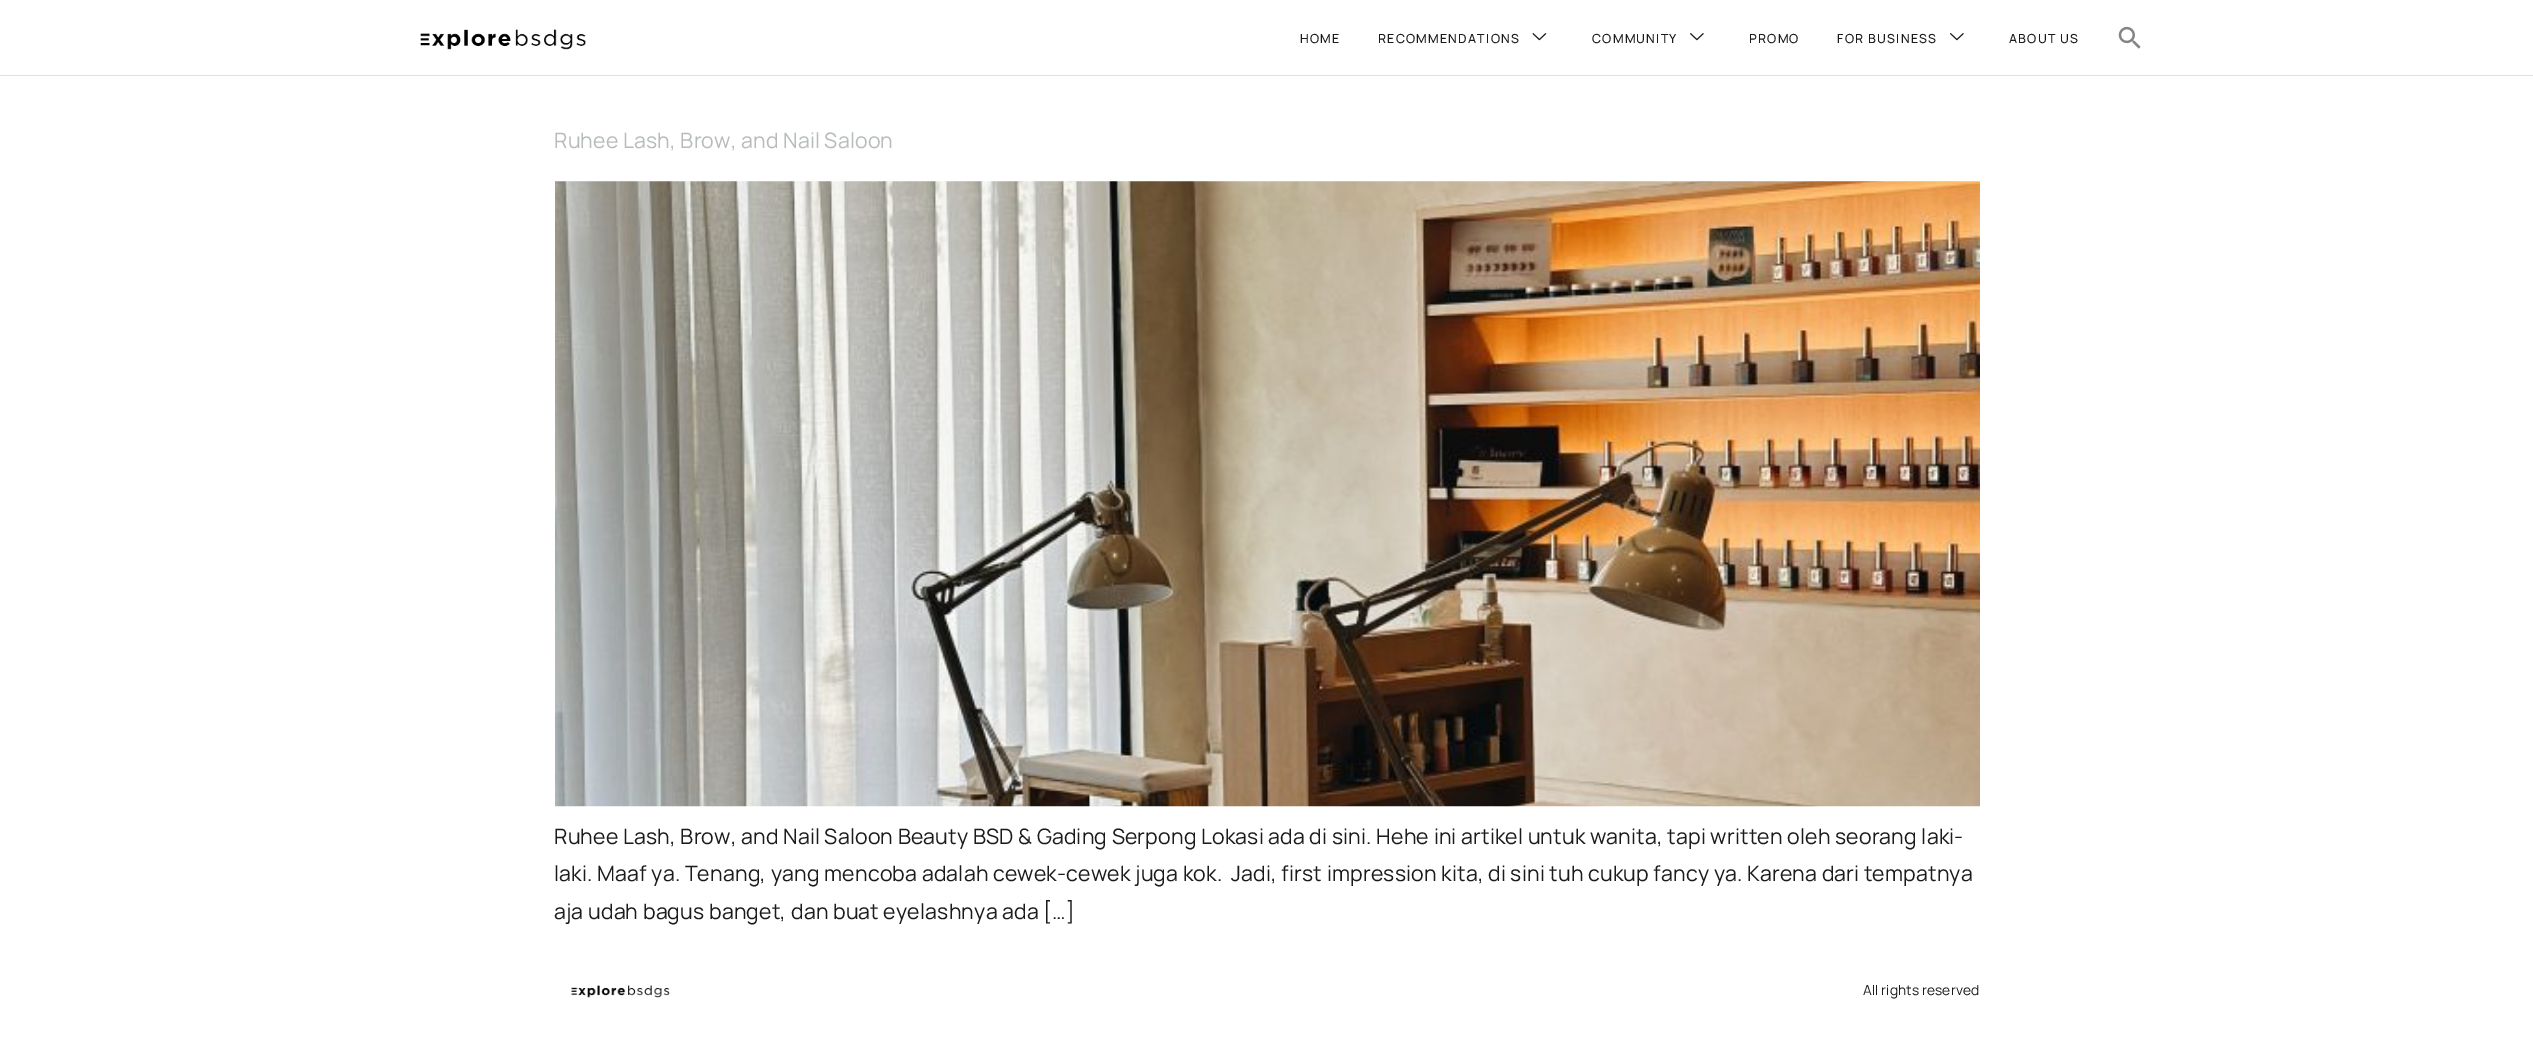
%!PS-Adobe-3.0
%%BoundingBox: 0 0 2533 1051
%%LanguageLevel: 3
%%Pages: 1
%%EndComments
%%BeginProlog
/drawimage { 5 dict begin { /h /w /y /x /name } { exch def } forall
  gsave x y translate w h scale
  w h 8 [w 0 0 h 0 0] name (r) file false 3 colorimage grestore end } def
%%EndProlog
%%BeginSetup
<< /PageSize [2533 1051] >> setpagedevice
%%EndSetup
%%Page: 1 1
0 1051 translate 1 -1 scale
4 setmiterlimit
1 setgray
0 0 2533 1051 rectfill
0.851 0.894 0.867 setrgbcolor
0 75 2533 1 rectfill
(images/1.raw) 420 29 166 21 drawimage
(images/2.raw) 1532 33 15 8 drawimage
(images/3.raw) 1690 33 14 8 drawimage
(images/3.raw) 1950 33 14 8 drawimage
(images/4.raw) 2118 26 23 23 drawimage
(images/5.raw) 555 181 1425 626 drawimage
(images/6.raw) 571 985 99 13 drawimage
/Manrope-Medium [12.5 0 0 -12.5 0 0] selectfont
0.106 setgray
1300 43 moveto 1.25 0 (HOME) ashow
1378 43 moveto 1.25 0 (RECOMMENDATIONS) ashow
1592 43 moveto 1.25 0 (COMMUNITY) ashow
1749 43 moveto 1.25 0 (PROMO) ashow
1837 43 moveto 1.25 0 (FOR BUSINESS) ashow
2009 43 moveto 1.25 0 (ABOUT US) ashow
/Manrope-Regular [21.25 0 0 -21.25 0 0] selectfont
0.714 0.737 0.722 setrgbcolor
554 148 moveto 0.19 0 (Ruhee Lash, Brow, and Nail Saloon) ashow
0.106 setgray
554 844 moveto 0.19 0 (Ruhee Lash, Brow, and Nail Saloon Beauty BSD & Gading Serpong Lokasi ada di sini. Hehe ini artikel untuk wanita, tapi written oleh seorang laki-) ashow
554 881 moveto 0.19 0 (laki. Maaf ya. Tenang, yang mencoba adalah cewek-cewek juga kok.  Jadi, first impression kita, di sini tuh cukup fancy ya. Karena dari tempatnya) ashow
554 919 moveto 0.19 0 (aja udah bagus banget, dan buat eyelashnya ada […]) ashow
/Manrope-Regular [13.75 0 0 -13.75 0 0] selectfont
1863 995 moveto 0.1 0 (All rights reserved) ashow
showpage
%%EOF
